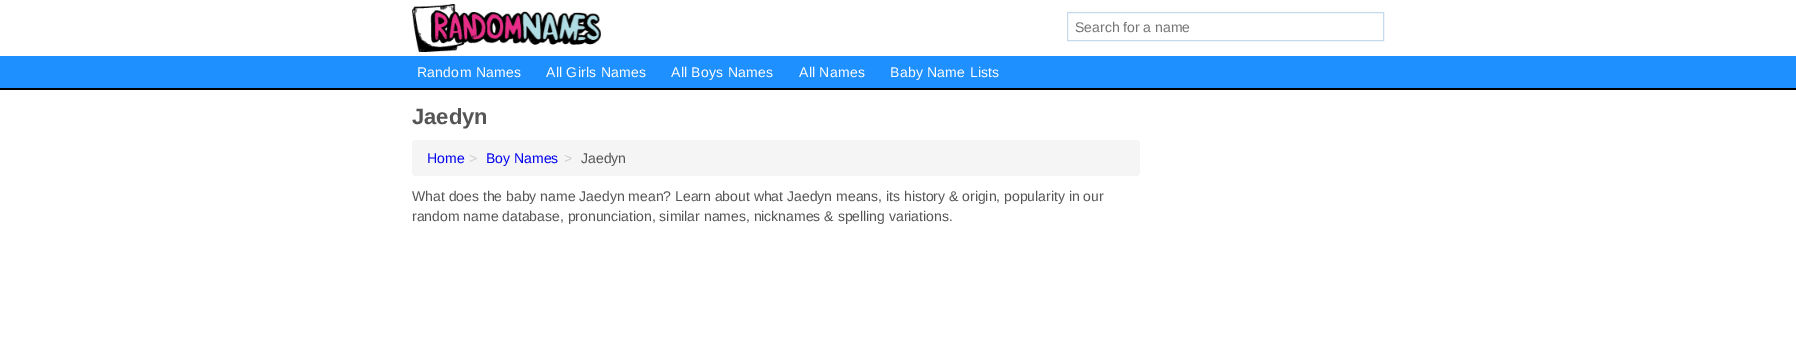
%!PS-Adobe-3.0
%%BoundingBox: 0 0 1796 341
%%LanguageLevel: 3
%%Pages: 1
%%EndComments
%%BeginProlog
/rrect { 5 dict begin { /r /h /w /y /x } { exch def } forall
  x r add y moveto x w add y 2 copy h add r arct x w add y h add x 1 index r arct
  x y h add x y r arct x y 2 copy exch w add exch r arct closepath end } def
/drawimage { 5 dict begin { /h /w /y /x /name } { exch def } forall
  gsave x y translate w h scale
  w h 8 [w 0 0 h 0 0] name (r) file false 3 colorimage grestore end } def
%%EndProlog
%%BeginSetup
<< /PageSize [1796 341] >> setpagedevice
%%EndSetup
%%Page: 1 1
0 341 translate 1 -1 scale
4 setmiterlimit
1 setgray
0 0 1796 341 rectfill
0 setgray
0 88 1796 2 rectfill
(images/1.raw) 412 4 189 48 drawimage
0.773 0.855 0.929 setrgbcolor
1067.5 12.5 316 28 rectstroke
0.118 0.565 1 setrgbcolor
0 56 1796 32 rectfill
0.961 setgray
412 140 728 36 4 rrect fill
/LiberationSans-Regular [14 0 0 -14 0 0] selectfont
0.459 setgray
1075 32 moveto (Search for a name) show
1 setgray
417 77 moveto 0.25 0 (Random Names) ashow
546 77 moveto 0.25 0 (All Girls Names) ashow
671 77 moveto 0.25 0 (All Boys Names) ashow
799 77 moveto 0.25 0 (All Names) ashow
890 77 moveto 0.25 0 (Baby Name Lists) ashow
/LiberationSans-Bold [22 0 0 -22 0 0] selectfont
0.333 setgray
412 124 moveto (Jaedyn) show
/LiberationSans-Regular [14 0 0 -14 0 0] selectfont
0 0 0.933 setrgbcolor
427 163 moveto (Home) show
0.8 setgray
469 163 moveto (>) show
0 0 0.933 setrgbcolor
486 163 moveto (Boy Names) show
0.8 setgray
564 163 moveto (>) show
0.333 setgray
581 163 moveto (Jaedyn) show
412 201 moveto (What does the baby name Jaedyn mean? Learn about what Jaedyn means, its history & origin, popularity in our) show
412 221 moveto (random name database, pronunciation, similar names, nicknames & spelling variations.) show
showpage
%%EOF
